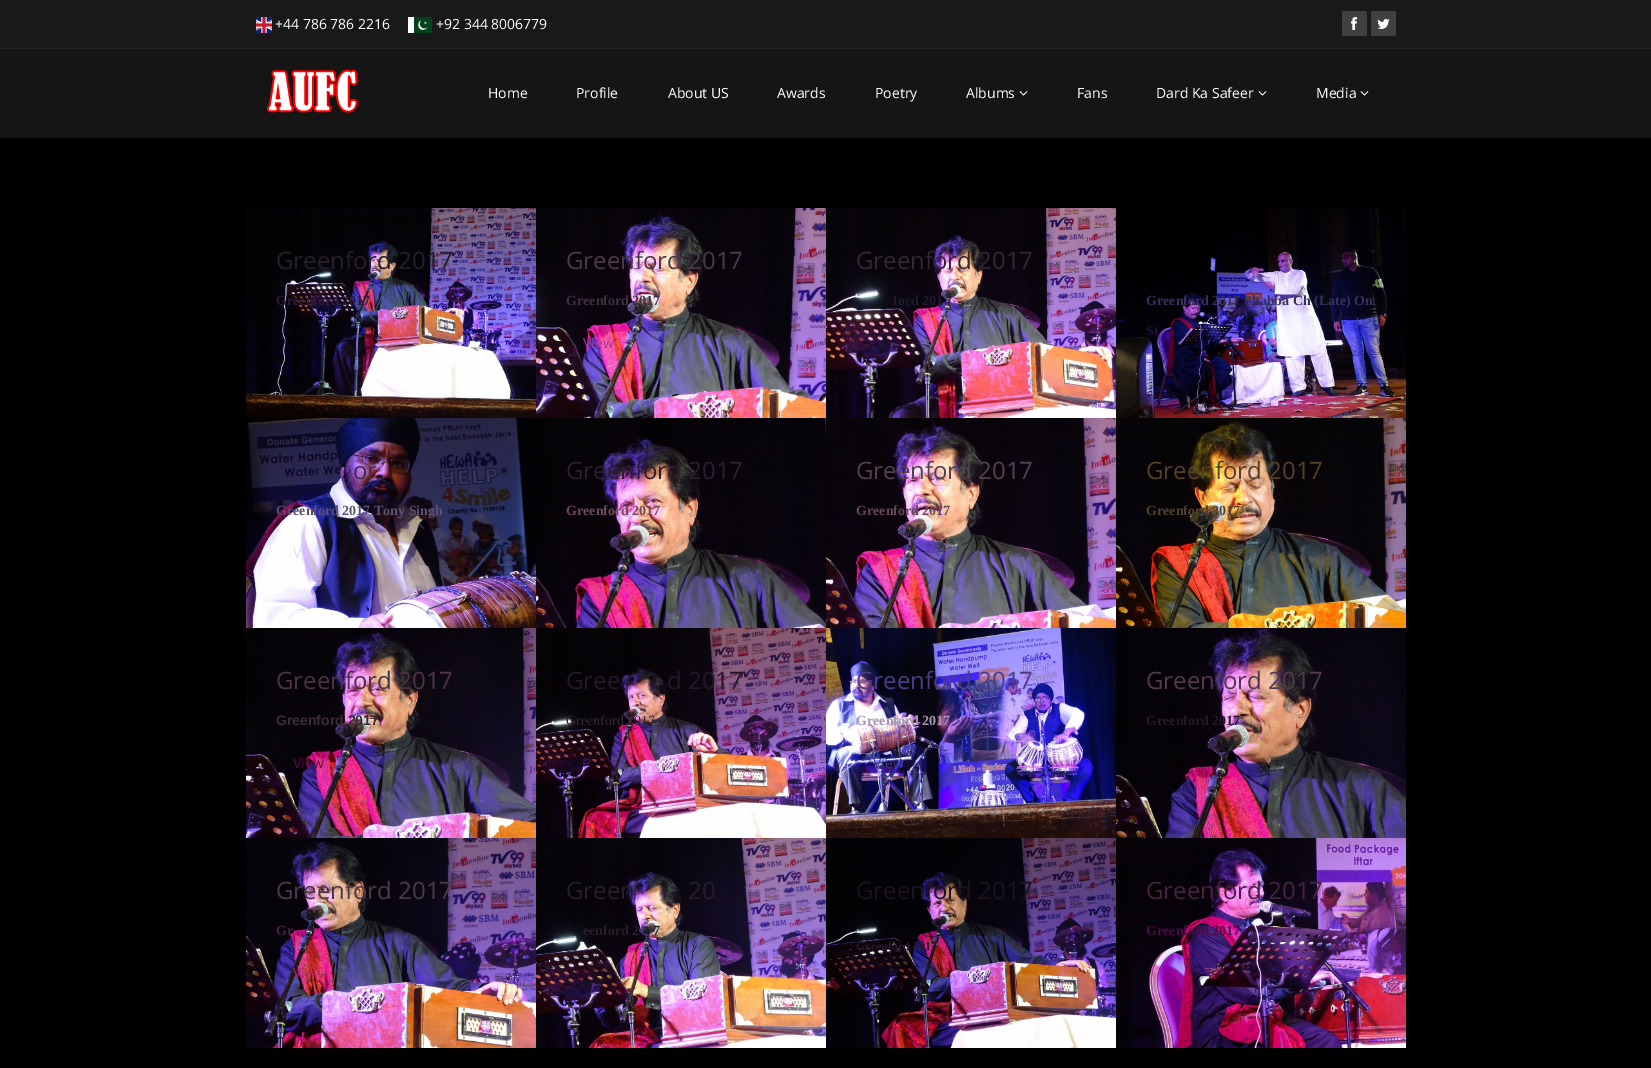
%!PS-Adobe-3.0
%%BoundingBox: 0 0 1651 1068
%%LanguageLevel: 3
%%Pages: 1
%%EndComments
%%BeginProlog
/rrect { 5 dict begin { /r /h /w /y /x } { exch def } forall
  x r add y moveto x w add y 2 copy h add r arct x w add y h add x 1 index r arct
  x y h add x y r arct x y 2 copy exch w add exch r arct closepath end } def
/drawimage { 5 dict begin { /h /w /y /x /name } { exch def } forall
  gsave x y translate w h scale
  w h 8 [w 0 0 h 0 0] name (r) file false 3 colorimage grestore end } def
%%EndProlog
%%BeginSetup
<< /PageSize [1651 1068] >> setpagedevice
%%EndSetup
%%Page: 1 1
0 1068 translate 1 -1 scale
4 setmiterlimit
0 setgray
0 0 1651 1068 rectfill
0.098 setgray
0 0 1651 48 rectfill
0.133 setgray
0 48 1651 1 rectfill
(images/1.raw) 256 17 16 16 drawimage
(images/2.raw) 408 17 24 16 drawimage
0.251 setgray
1342 11 25 25 2 rrect fill
(images/3.raw) 1351 17 6 13 drawimage
1371 11 25 25 2 rrect fill
(images/4.raw) 1377 19 13 10 drawimage
0.082 setgray
0 49 1651 89 rectfill
(images/5.raw) 267 69 91 44 drawimage
(images/6.raw) 1019 91 9 5 drawimage
(images/6.raw) 1258 91 9 5 drawimage
(images/6.raw) 1360 91 9 5 drawimage
(images/7.raw) 246 208 290 210 drawimage
(images/8.raw) 536 208 290 210 drawimage
(images/9.raw) 826 208 290 210 drawimage
(images/10.raw) 1116 208 290 210 drawimage
(images/11.raw) 246 418 290 210 drawimage
(images/12.raw) 536 418 290 210 drawimage
(images/13.raw) 826 418 290 210 drawimage
(images/14.raw) 1116 418 290 210 drawimage
(images/15.raw) 246 628 290 210 drawimage
(images/16.raw) 536 628 290 210 drawimage
(images/17.raw) 826 628 290 210 drawimage
(images/18.raw) 1116 628 290 210 drawimage
(images/19.raw) 246 838 290 210 drawimage
(images/20.raw) 536 838 290 210 drawimage
(images/21.raw) 826 838 290 210 drawimage
(images/22.raw) 1116 838 290 210 drawimage
/OpenSans-Regular [14 0 0 -14 0 0] selectfont
1 setgray
275 29 moveto (+44 786 786 2216) show
436 29 moveto (+92 344 8006779) show
488 98 moveto (Home) show
576 98 moveto (Profile) show
668 98 moveto (About US) show
777 98 moveto (Awards) show
875 98 moveto (Poetry) show
966 98 moveto (Albums) show
1077 98 moveto (Fans) show
1156 98 moveto (Dard Ka Safeer) show
1316 98 moveto (Media) show
/OpenSans-Regular [24 0 0 -24 0 0] selectfont
0.149 0.118 0.169 setrgbcolor
276 269 moveto (Greenford 2017) show
/LiberationSerif-Bold [14 0 0 -14 0 0] selectfont
0.188 0.11 0.22 setrgbcolor
276 305 moveto (Greenford 2017) show
/OpenSans-Regular [24 0 0 -24 0 0] selectfont
0.29 0.227 0.275 setrgbcolor
566 269 moveto (Greenford 2017) show
/LiberationSerif-Bold [14 0 0 -14 0 0] selectfont
0.247 0.192 0.247 setrgbcolor
566 305 moveto (Greenford 2017) show
/OpenSans-Regular [14 0 0 -14 0 0] selectfont
0.639 0.231 0.596 setrgbcolor
583 348 moveto (View) show
/OpenSans-Regular [24 0 0 -24 0 0] selectfont
0.204 0.149 0.196 setrgbcolor
856 269 moveto (Greenford 2017) show
/LiberationSerif-Bold [14 0 0 -14 0 0] selectfont
0.118 0.11 0.169 setrgbcolor
893 305 moveto (ford 201) show
0.22 0.188 0.369 setrgbcolor
1146 305 moveto (Greenford 2017 Shabba Ch \(Late\) On) show
0.125 0.051 0.247 setrgbcolor
1146 335 moveto (St) show
/OpenSans-Regular [24 0 0 -24 0 0] selectfont
0.259 0.176 0.349 setrgbcolor
353 479 moveto (or) show
/LiberationSerif-Bold [14 0 0 -14 0 0] selectfont
0.357 0.314 0.447 setrgbcolor
276 515 moveto (Greenford 2017 Tony Singh) show
/OpenSans-Regular [14 0 0 -14 0 0] selectfont
0.89 0.847 0.961 setrgbcolor
293 558 moveto (V) show
/OpenSans-Regular [24 0 0 -24 0 0] selectfont
0.18 0.114 0.184 setrgbcolor
566 479 moveto (Greenford 2017) show
/LiberationSerif-Bold [14 0 0 -14 0 0] selectfont
0.439 0.29 0.361 setrgbcolor
566 515 moveto (Greenford 2017) show
/OpenSans-Regular [24 0 0 -24 0 0] selectfont
0.325 0.247 0.31 setrgbcolor
856 479 moveto (Greenford 2017) show
/LiberationSerif-Bold [14 0 0 -14 0 0] selectfont
0.396 0.278 0.337 setrgbcolor
856 515 moveto (Greenford 2017) show
/OpenSans-Regular [24 0 0 -24 0 0] selectfont
0.325 0.251 0.157 setrgbcolor
1146 479 moveto (Greenford 2017) show
/LiberationSerif-Bold [14 0 0 -14 0 0] selectfont
0.314 0.251 0.188 setrgbcolor
1146 515 moveto (Greenford 2017) show
/OpenSans-Regular [24 0 0 -24 0 0] selectfont
0.294 0.2 0.267 setrgbcolor
276 689 moveto (Greenford 2017) show
/LiberationSans-Bold [14 0 0 -14 0 0] selectfont
0.227 0.173 0.212 setrgbcolor
276 725 moveto (Greenford 2017) show
/OpenSans-Regular [14 0 0 -14 0 0] selectfont
0.337 0.067 0.247 setrgbcolor
293 768 moveto (View) show
/OpenSans-Regular [24 0 0 -24 0 0] selectfont
0.153 0.094 0.157 setrgbcolor
566 689 moveto (Gree) show
667 689 moveto (d 2017) show
/LiberationSerif-Regular [14 0 0 -14 0 0] selectfont
0.204 0.149 0.196 setrgbcolor
566 725 moveto (Greenford 2017) show
/OpenSans-Regular [24 0 0 -24 0 0] selectfont
0.298 0.239 0.514 setrgbcolor
856 689 moveto (Greenford 2017) show
/LiberationSerif-Bold [14 0 0 -14 0 0] selectfont
0.655 0.592 0.686 setrgbcolor
856 725 moveto (Greenford 2017) show
/OpenSans-Regular [14 0 0 -14 0 0] selectfont
0.251 0.231 0.529 setrgbcolor
873 768 moveto (View) show
/OpenSans-Regular [24 0 0 -24 0 0] selectfont
0.322 0.224 0.298 setrgbcolor
1146 689 moveto (Greenford 2017) show
/LiberationSerif-Bold [14 0 0 -14 0 0] selectfont
0.153 0.094 0.157 setrgbcolor
1146 725 moveto (Greenford 2017) show
/OpenSans-Regular [24 0 0 -24 0 0] selectfont
0.29 0.227 0.275 setrgbcolor
276 899 moveto (Greenford 2017) show
/LiberationSerif-Bold [14 0 0 -14 0 0] selectfont
0.275 0.129 0.251 setrgbcolor
276 935 moveto (Gr) show
324 935 moveto (r) show
/OpenSans-Regular [14 0 0 -14 0 0] selectfont
0.678 0.18 0.329 setrgbcolor
293 978 moveto (View) show
/OpenSans-Regular [24 0 0 -24 0 0] selectfont
0.149 0.118 0.169 setrgbcolor
566 899 moveto (Green) show
688 899 moveto (20) show
/LiberationSerif-Bold [14 0 0 -14 0 0] selectfont
583 935 moveto (eenford 2) show
653 935 moveto (7) show
/OpenSans-Regular [24 0 0 -24 0 0] selectfont
0.11 0.071 0.129 setrgbcolor
856 899 moveto (Greenford 2017) show
/LiberationSerif-Bold [12 0 0 -12 0 0] selectfont
0.153 0.094 0.157 setrgbcolor
856 950 moveto (Greenford 2017) show
/OpenSans-Regular [14 0 0 -14 0 0] selectfont
0.114 0.067 0.18 setrgbcolor
893 990 moveto (w) show
/OpenSans-Regular [24 0 0 -24 0 0] selectfont
0.275 0.129 0.251 setrgbcolor
1146 899 moveto (Greenford 2017) show
/LiberationSerif-Bold [14 0 0 -14 0 0] selectfont
0.294 0.047 0.271 setrgbcolor
1146 935 moveto (Greenford 2017) show
showpage
%%EOF
